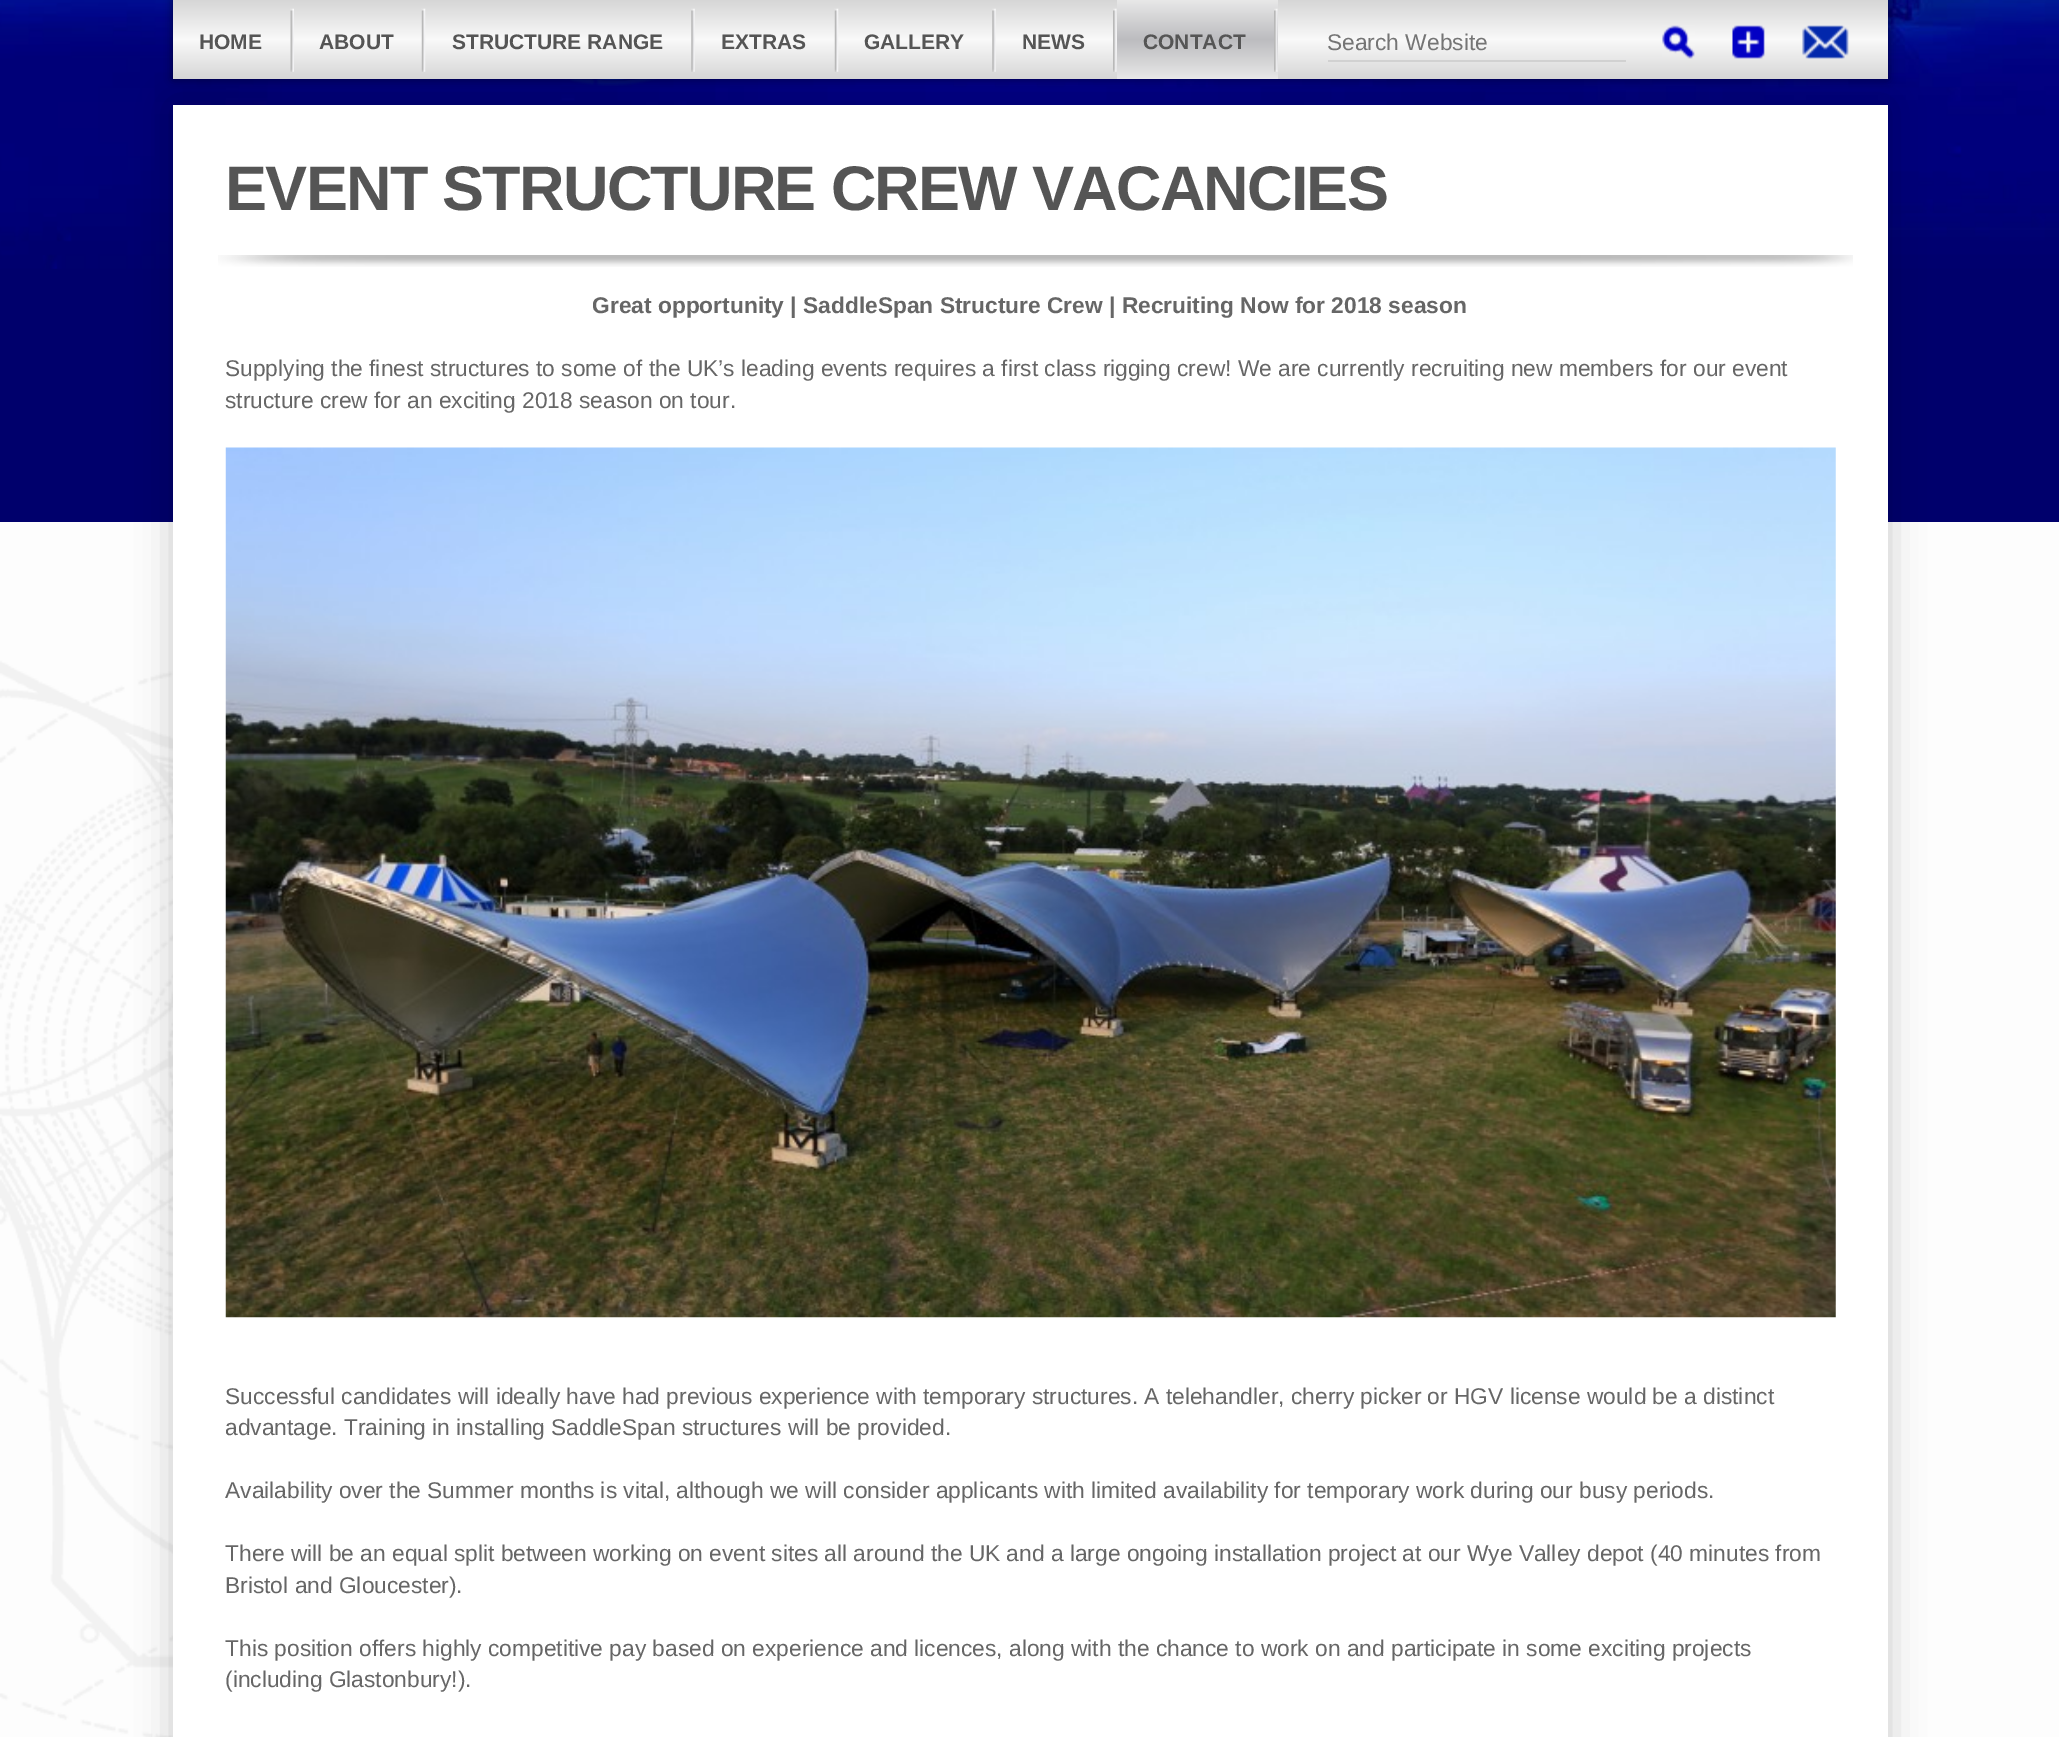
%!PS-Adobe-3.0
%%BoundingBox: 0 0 2059 1737
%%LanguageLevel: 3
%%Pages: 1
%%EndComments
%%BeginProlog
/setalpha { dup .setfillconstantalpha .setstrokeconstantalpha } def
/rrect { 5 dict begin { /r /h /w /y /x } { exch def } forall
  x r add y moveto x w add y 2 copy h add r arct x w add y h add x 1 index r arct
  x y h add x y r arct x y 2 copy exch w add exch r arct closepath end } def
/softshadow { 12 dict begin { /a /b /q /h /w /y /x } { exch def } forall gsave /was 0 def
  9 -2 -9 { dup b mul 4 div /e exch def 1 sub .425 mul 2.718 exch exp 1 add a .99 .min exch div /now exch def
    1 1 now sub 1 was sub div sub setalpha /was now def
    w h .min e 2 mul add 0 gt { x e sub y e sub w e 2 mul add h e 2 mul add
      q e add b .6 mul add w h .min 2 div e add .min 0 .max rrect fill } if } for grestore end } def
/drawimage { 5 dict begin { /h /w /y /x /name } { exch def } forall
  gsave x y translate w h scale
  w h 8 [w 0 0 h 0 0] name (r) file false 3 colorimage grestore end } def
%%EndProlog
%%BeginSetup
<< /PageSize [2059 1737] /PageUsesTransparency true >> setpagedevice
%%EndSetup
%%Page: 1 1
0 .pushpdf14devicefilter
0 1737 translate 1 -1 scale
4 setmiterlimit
0.992 setgray
0 0 2059 1737 rectfill
(images/1.raw) 0 522 173 1215 drawimage
0 0 0.424 setrgbcolor
0 269 2059 253 rectfill
(images/2.raw) 0 0 2059 269 drawimage
0 setgray
173 105 1715 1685 0 17.5 0.2 softshadow
(images/11.raw) 562 79 97 7 drawimage
173 0 1715 79 0 4.5 0.5 softshadow
gsave newpath 173 0 moveto 1888 0 lineto 1888 79 lineto 173 79 lineto closepath clip newpath
<< /ShadingType 2 /ColorSpace /DeviceRGB /Coords [1031 0 1031 79] /Extend [true true] /Function << /FunctionType 3 /Domain [0 1] /Functions [<< /FunctionType 2 /Domain [0 1] /C0 [0.839 0.839 0.839] /C1 [0.976 0.976 0.976] /N 1 >> << /FunctionType 2 /Domain [0 1] /C0 [0.976 0.976 0.976] /C1 [0.839 0.839 0.839] /N 1 >>] /Bounds [0.5] /Encode [0 1 0 1] >> >> shfill grestore
(images/3.raw) 290 8 4 64 drawimage
(images/4.raw) 421 8 5 64 drawimage
(images/5.raw) 691 8 4 64 drawimage
(images/4.raw) 834 8 5 64 drawimage
(images/5.raw) 992 8 4 64 drawimage
(images/6.raw) 1113 8 4 64 drawimage
gsave newpath 1117 0 moveto 1278 0 lineto 1278 79 lineto 1117 79 lineto closepath clip newpath
<< /ShadingType 2 /ColorSpace /DeviceRGB /Coords [1197 0 1197 79] /Extend [true true] /Function << /FunctionType 3 /Domain [0 1] /Functions [<< /FunctionType 2 /Domain [0 1] /C0 [0.91 0.91 0.91] /C1 [0.737 0.737 0.749] /N 1 >> << /FunctionType 2 /Domain [0 1] /C0 [0.737 0.737 0.749] /C1 [0.91 0.91 0.91] /N 1 >>] /Bounds [0.5] /Encode [0 1 0 1] >> >> shfill grestore
(images/7.raw) 1274 8 4 64 drawimage
0.82 setgray
1328 60 298 2 rectfill
(images/8.raw) 1662 25 33 34 drawimage
(images/9.raw) 1732 25 33 34 drawimage
(images/10.raw) 1802 25 47 34 drawimage
1 setgray
173 105 1715 1632 rectfill
(images/12.raw) 218 255 1635 12 drawimage
(images/13.raw) 225 447 1611 871 drawimage
/LiberationSans-Bold [21 0 0 -21 0 0] selectfont
0.333 setgray
199 49 moveto (HOME) show
319 49 moveto (ABOUT) show
452 49 moveto (STRUCTURE RANGE) show
721 49 moveto (EXTRAS) show
864 49 moveto (GALLERY) show
1022 49 moveto (NEWS) show
1143 49 moveto (CONTACT) show
/LiberationSans-Regular [22.75 0 0 -22.75 0 0] selectfont
0.459 setgray
1327 50 moveto (Search Website) show
/LiberationSans-Bold [63 0 0 -63 0 0] selectfont
0.333 setgray
225 210 moveto -1.75 0 (EVENT STRUCTURE CREW VACANCIES) ashow
/LiberationSans-Bold [22.75 0 0 -22.75 0 0] selectfont
0.4 setgray
592 313 moveto (Great opportunity | SaddleSpan Structure Crew | Recruiting Now for 2018 season) show
/LiberationSans-Regular [22.75 0 0 -22.75 0 0] selectfont
225 376 moveto (Supplying the finest structures to some of the UK’s leading events requires a first class rigging crew! We are currently recruiting new members for our event) show
225 408 moveto (structure crew for an exciting 2018 season on tour.) show
225 1404 moveto (Successful candidates will ideally have had previous experience with temporary structures. A telehandler, cherry picker or HGV license would be a distinct) show
225 1435 moveto (advantage. Training in installing SaddleSpan structures will be provided.) show
225 1498 moveto (Availability over the Summer months is vital, although we will consider applicants with limited availability for temporary work during our busy periods.) show
225 1561 moveto (There will be an equal split between working on event sites all around the UK and a large ongoing installation project at our Wye Valley depot \(40 minutes from) show
225 1593 moveto (Bristol and Gloucester\).) show
225 1656 moveto (This position offers highly competitive pay based on experience and licences, along with the chance to work on and participate in some exciting projects) show
225 1687 moveto (\(including Glastonbury!\).) show
.poppdf14devicefilter showpage
%%EOF
